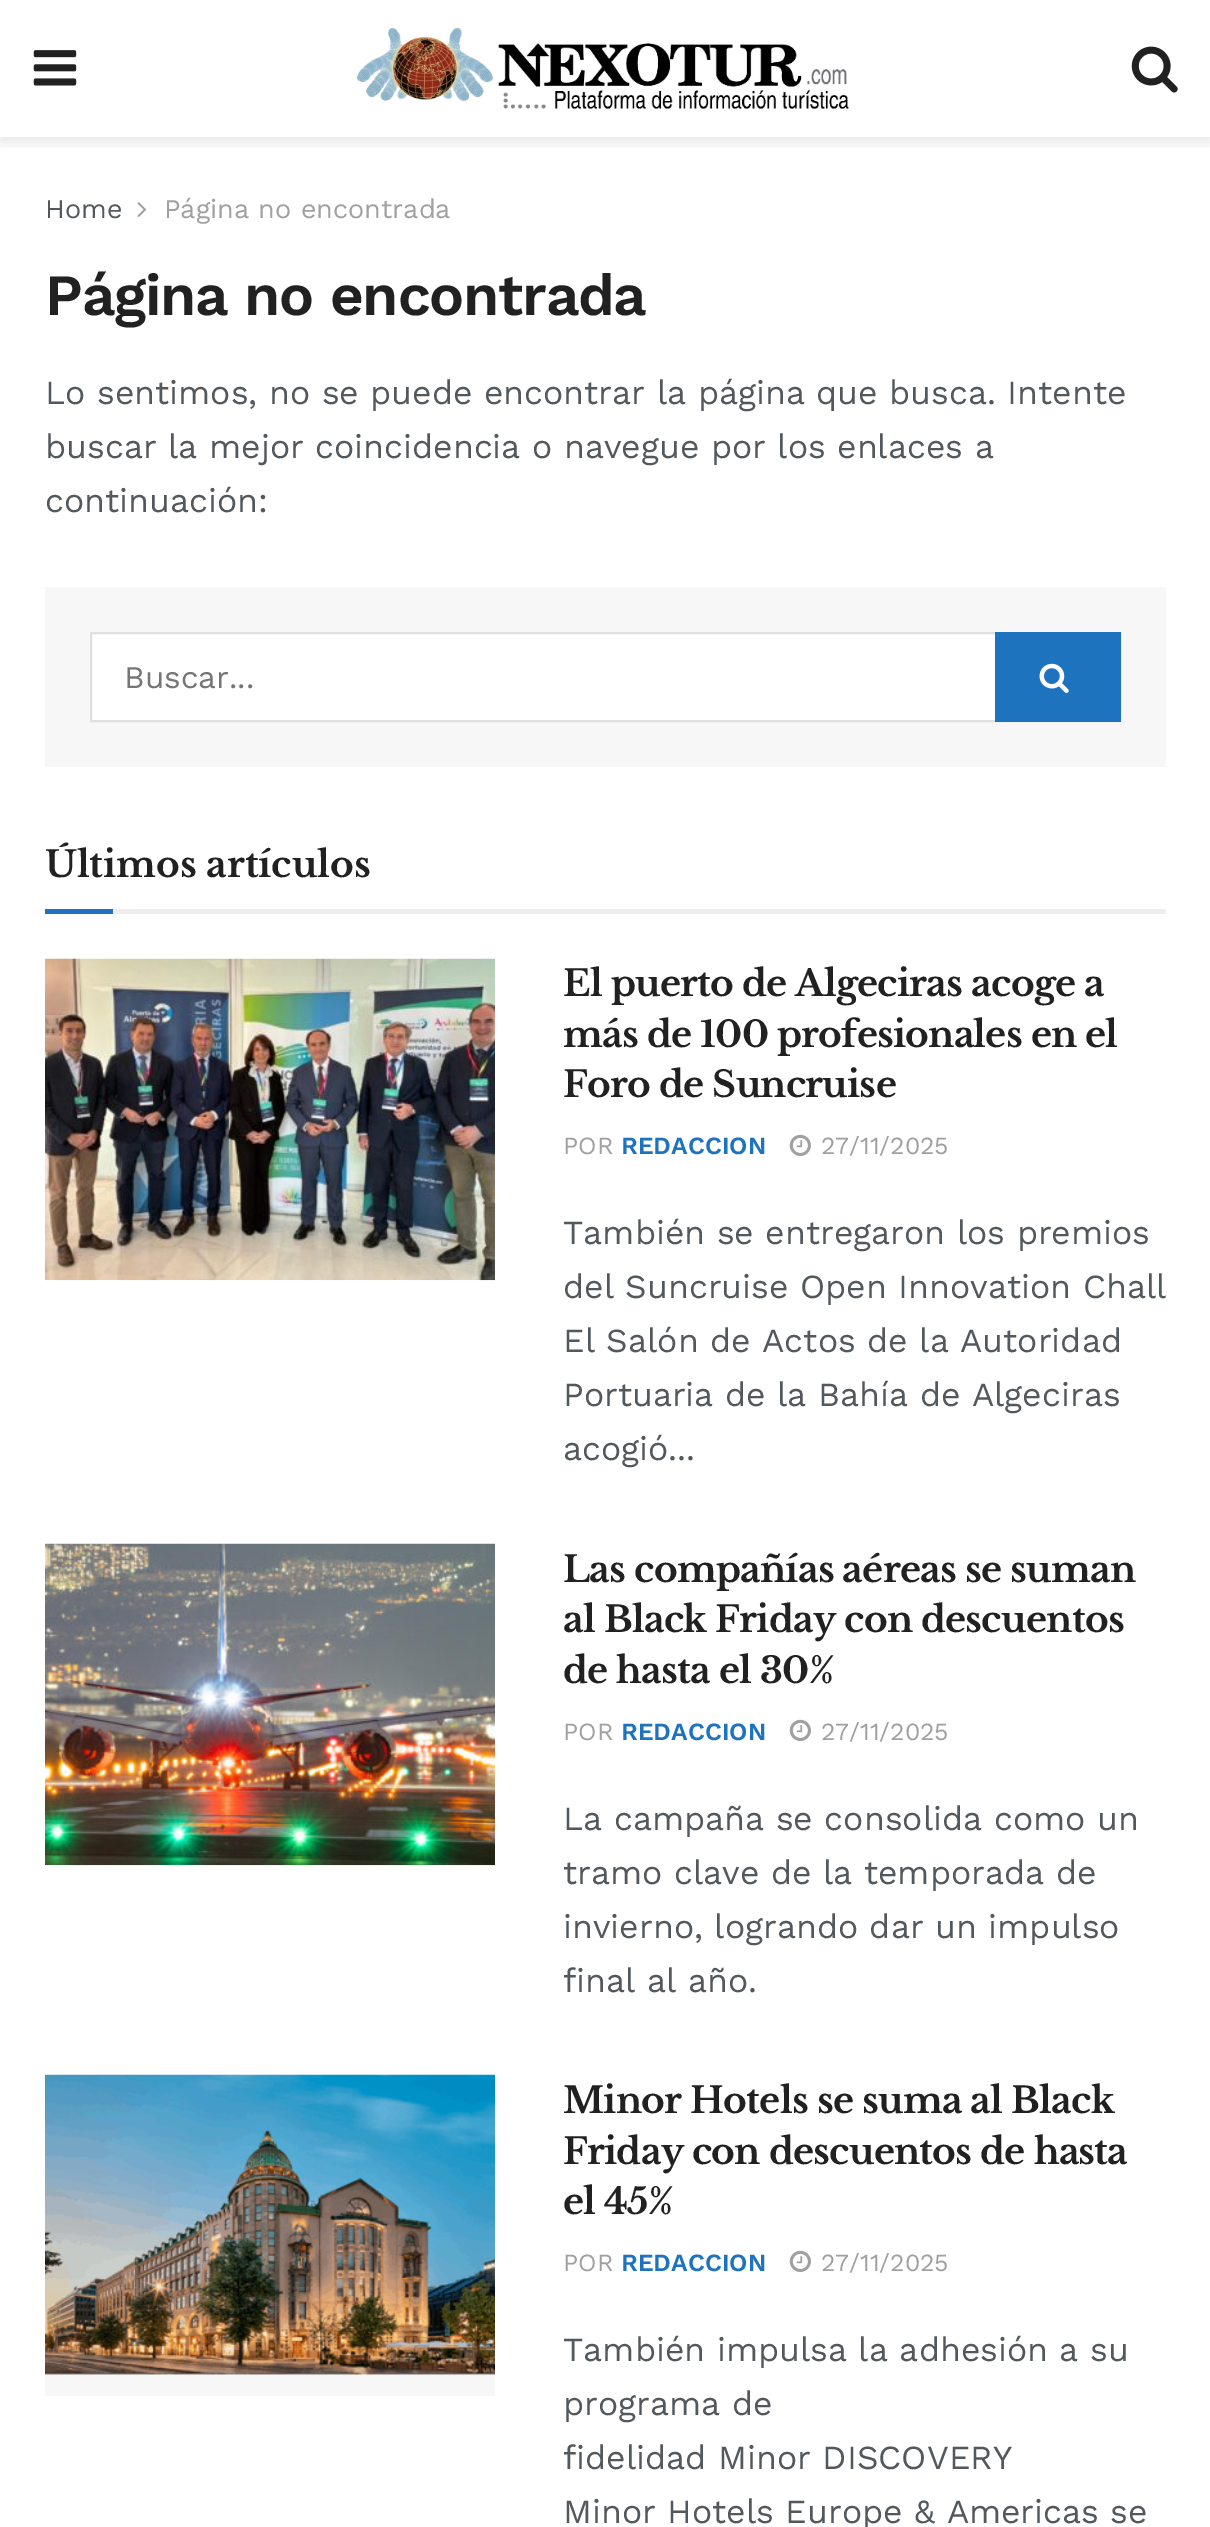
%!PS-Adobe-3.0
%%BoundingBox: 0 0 1210 2527
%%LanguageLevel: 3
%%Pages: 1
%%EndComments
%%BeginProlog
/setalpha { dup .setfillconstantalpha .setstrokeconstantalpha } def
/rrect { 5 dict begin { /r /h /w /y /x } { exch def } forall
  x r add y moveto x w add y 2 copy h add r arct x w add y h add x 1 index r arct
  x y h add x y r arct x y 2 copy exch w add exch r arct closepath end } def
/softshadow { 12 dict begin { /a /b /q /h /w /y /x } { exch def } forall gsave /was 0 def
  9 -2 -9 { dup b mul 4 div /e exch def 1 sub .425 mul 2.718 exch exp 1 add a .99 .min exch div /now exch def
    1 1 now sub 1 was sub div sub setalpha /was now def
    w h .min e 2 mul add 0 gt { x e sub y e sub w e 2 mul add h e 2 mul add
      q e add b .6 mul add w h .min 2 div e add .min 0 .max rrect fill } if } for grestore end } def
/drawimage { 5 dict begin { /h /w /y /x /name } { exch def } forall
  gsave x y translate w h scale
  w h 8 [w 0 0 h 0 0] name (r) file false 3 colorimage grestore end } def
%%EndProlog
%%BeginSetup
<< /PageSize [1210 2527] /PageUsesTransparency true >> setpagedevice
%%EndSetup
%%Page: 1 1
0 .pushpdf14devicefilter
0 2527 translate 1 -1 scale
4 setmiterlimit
1 setgray
0 0 1210 2527 rectfill
gsave
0 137 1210 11 rectclip
0 setgray
0 5 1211 137 0 7 0.1 softshadow
grestore
(images/1.raw) 33 50 44 36 drawimage
(images/2.raw) 356 27 493 82 drawimage
(images/3.raw) 1131 46 47 47 drawimage
(images/4.raw) 137 202 10 15 drawimage
0.969 setgray
45 587 1121 180 rectfill
1 setgray
92 634 903 86 rectfill
0.878 setgray
2 setlinewidth
91 633 1029 88 rectstroke
0.118 0.451 0.745 setrgbcolor
995 632 126 90 rectfill
(images/5.raw) 1039 663 30 30 drawimage
0.933 setgray
113 909 1053 5 rectfill
0.118 0.451 0.745 setrgbcolor
45 909 68 5 rectfill
(images/6.raw) 45 958 450 323 drawimage
(images/7.raw) 789 1134 22 22 drawimage
(images/8.raw) 45 1543 450 323 drawimage
(images/7.raw) 789 1719 22 22 drawimage
0.969 setgray
45 2373 450 23 rectfill
(images/9.raw) 45 2074 450 301 drawimage
(images/7.raw) 789 2250 22 22 drawimage
/WorkSans-Regular [27 0 0 -27 0 0] selectfont
0.325 0.345 0.361 setrgbcolor
45 218 moveto (Home) show
0.627 setgray
164 218 moveto (Página no encontrada) show
/WorkSans-SemiBold [58.5 0 0 -58.5 0 0] selectfont
0.129 setgray
45 315 moveto -1.2 0 (Página no encontrada) ashow
/WorkSans-Regular [33.75 0 0 -33.75 0 0] selectfont
0.325 0.345 0.361 setrgbcolor
45 404 moveto (Lo sentimos, no se puede encontrar la página que busca. Intente) show
45 458 moveto (buscar la mejor coincidencia o navegue por los enlaces a) show
45 512 moveto (continuación:) show
/WorkSans-Regular [31.5 0 0 -31.5 0 0] selectfont
0.459 setgray
124 688 moveto (Buscar...) show
/LibreBaskerville-Bold [36 0 0 -36 0 0] selectfont
0.129 setgray
45 877 moveto (Últimos artículos) show
563 996 moveto -0.75 0 (El puerto de Algeciras acoge a) ashow
563 1047 moveto -0.75 0 (más de 100 profesionales en el) ashow
563 1097 moveto -0.75 0 (Foro de Suncruise) ashow
/WorkSans-Regular [24.75 0 0 -24.75 0 0] selectfont
0.627 setgray
563 1154 moveto (POR) show
/WorkSans-SemiBold [24.75 0 0 -24.75 0 0] selectfont
0.118 0.451 0.745 setrgbcolor
621 1154 moveto (REDACCION) show
/WorkSans-Regular [24.75 0 0 -24.75 0 0] selectfont
0.627 setgray
821 1154 moveto (27/11/2025) show
/WorkSans-Regular [33.75 0 0 -33.75 0 0] selectfont
0.325 0.345 0.361 setrgbcolor
563 1244 moveto (También se entregaron los premios) show
563 1298 moveto (del Suncruise Open Innovation Chall) show
563 1352 moveto (El Salón de Actos de la Autoridad) show
563 1406 moveto (Portuaria de la Bahía de Algeciras) show
563 1460 moveto (acogió...) show
/LibreBaskerville-Bold [36 0 0 -36 0 0] selectfont
0.129 setgray
563 1582 moveto -0.75 0 (Las compañías aéreas se suman) ashow
563 1632 moveto -0.75 0 (al Black Friday con descuentos) ashow
563 1683 moveto -0.75 0 (de hasta el 30%) ashow
/WorkSans-Regular [24.75 0 0 -24.75 0 0] selectfont
0.627 setgray
563 1740 moveto (POR) show
/WorkSans-SemiBold [24.75 0 0 -24.75 0 0] selectfont
0.118 0.451 0.745 setrgbcolor
621 1740 moveto (REDACCION) show
/WorkSans-Regular [24.75 0 0 -24.75 0 0] selectfont
0.627 setgray
821 1740 moveto (27/11/2025) show
/WorkSans-Regular [33.75 0 0 -33.75 0 0] selectfont
0.325 0.345 0.361 setrgbcolor
563 1830 moveto (La campaña se consolida como un) show
563 1884 moveto (tramo clave de la temporada de) show
563 1938 moveto (invierno, logrando dar un impulso) show
563 1992 moveto (final al año.) show
/LibreBaskerville-Bold [36 0 0 -36 0 0] selectfont
0.129 setgray
563 2113 moveto -0.75 0 (Minor Hotels se suma al Black) ashow
563 2164 moveto -0.75 0 (Friday con descuentos de hasta) ashow
563 2214 moveto -0.75 0 (el 45%) ashow
/WorkSans-Regular [24.75 0 0 -24.75 0 0] selectfont
0.627 setgray
563 2271 moveto (POR) show
/WorkSans-SemiBold [24.75 0 0 -24.75 0 0] selectfont
0.118 0.451 0.745 setrgbcolor
621 2271 moveto (REDACCION) show
/WorkSans-Regular [24.75 0 0 -24.75 0 0] selectfont
0.627 setgray
821 2271 moveto (27/11/2025) show
/WorkSans-Regular [33.75 0 0 -33.75 0 0] selectfont
0.325 0.345 0.361 setrgbcolor
563 2361 moveto (También impulsa la adhesión a su) show
563 2415 moveto (programa de) show
563 2469 moveto (fidelidad Minor DISCOVERY) show
563 2523 moveto (Minor Hotels Europe & Americas se) show
.poppdf14devicefilter showpage
%%EOF
